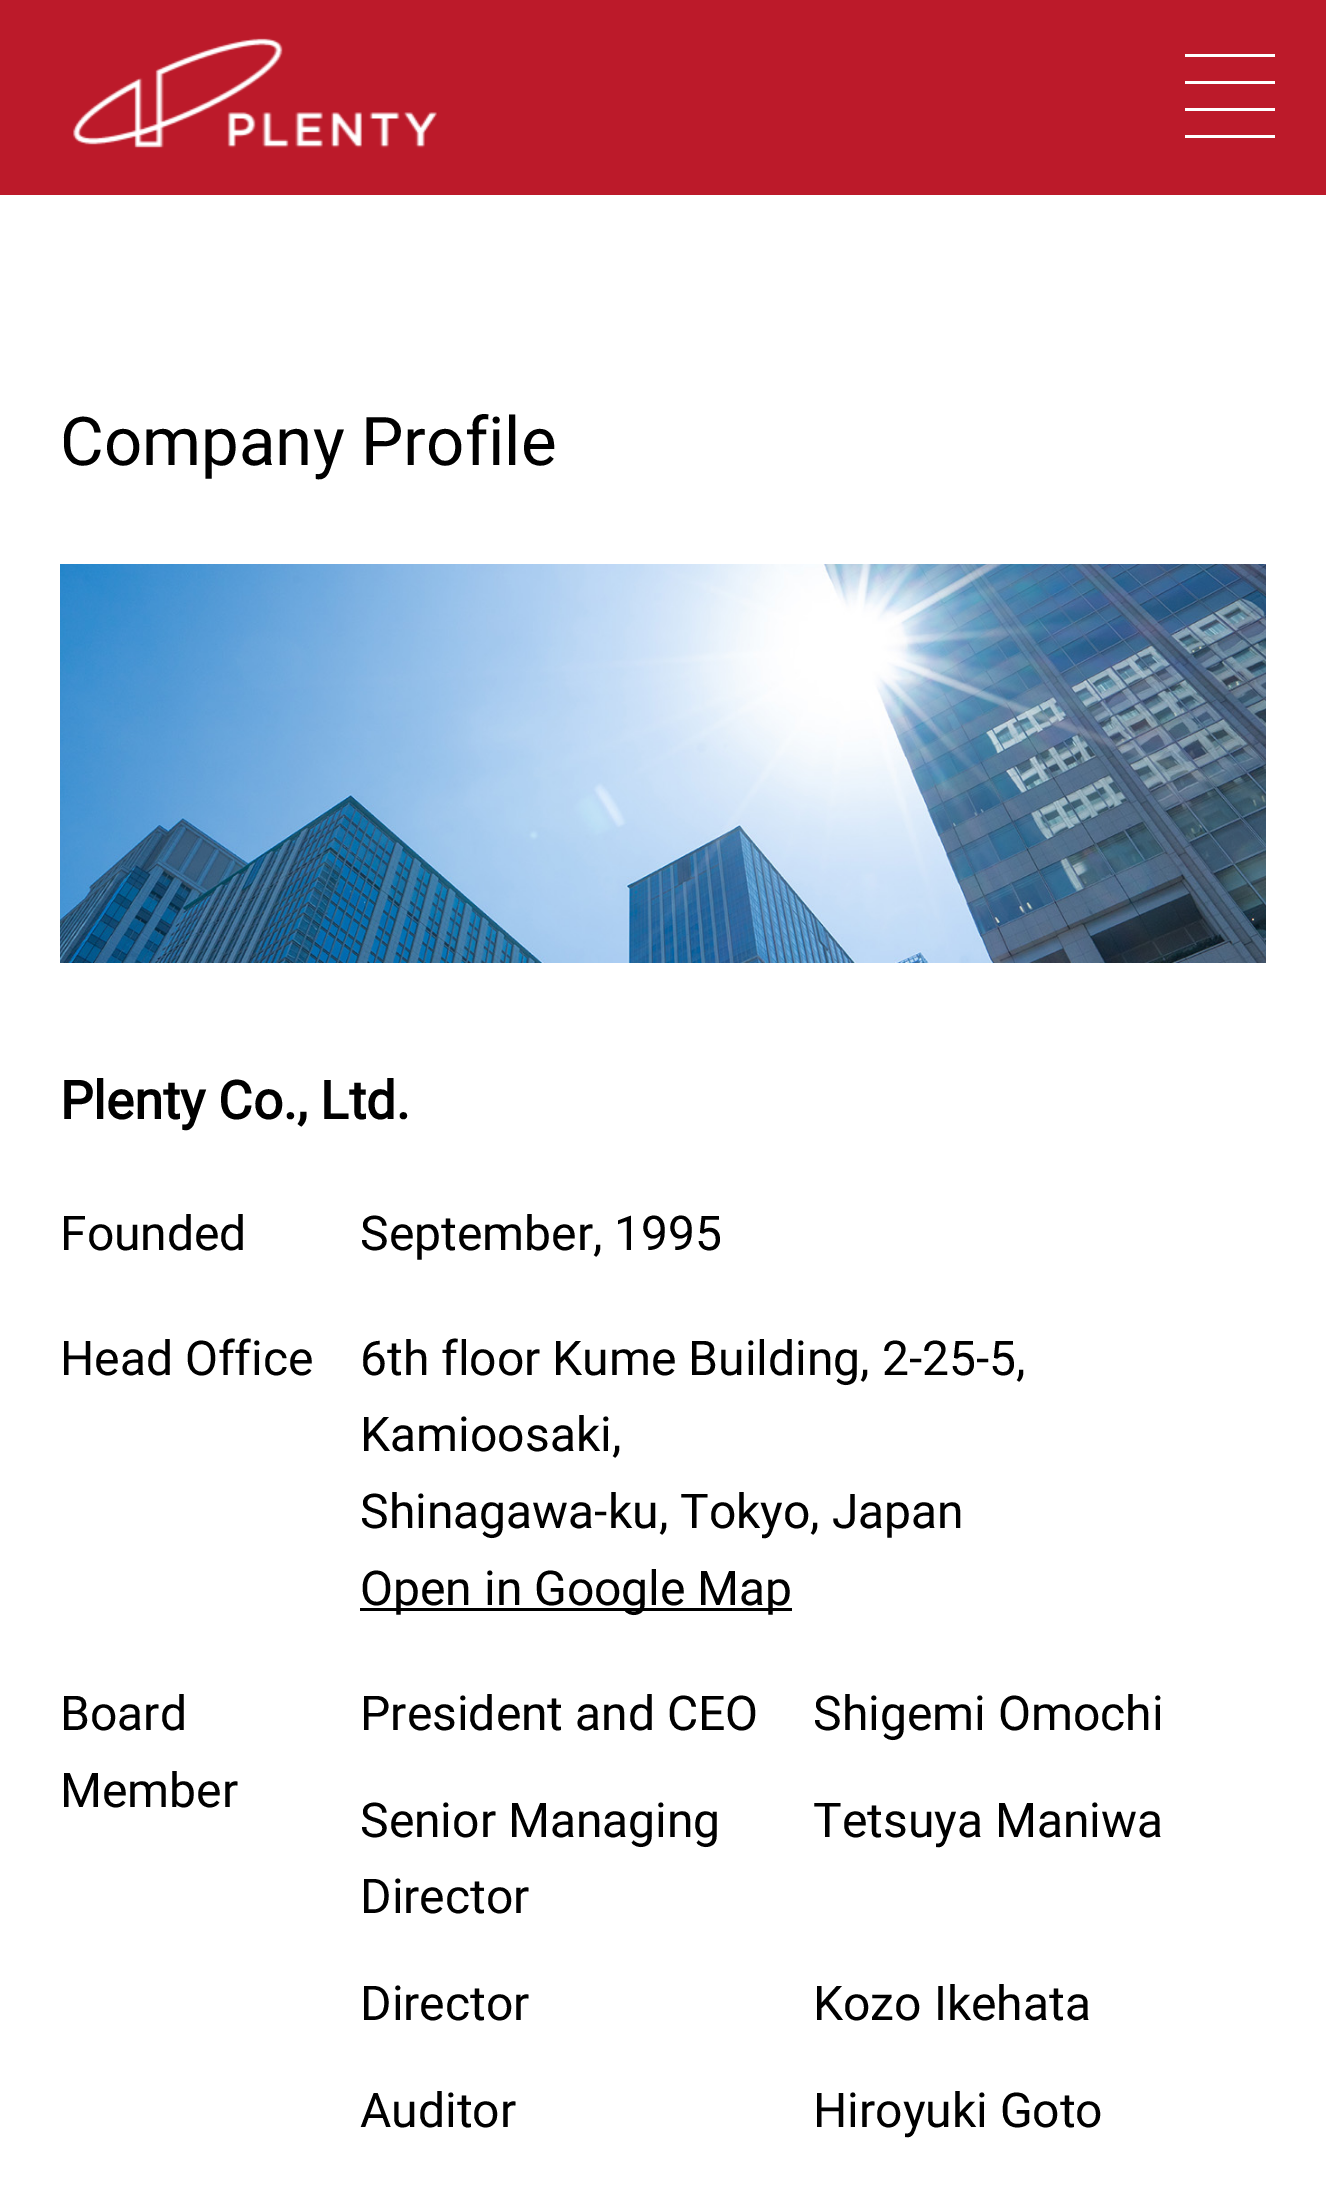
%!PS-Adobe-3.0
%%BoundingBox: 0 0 1326 2210
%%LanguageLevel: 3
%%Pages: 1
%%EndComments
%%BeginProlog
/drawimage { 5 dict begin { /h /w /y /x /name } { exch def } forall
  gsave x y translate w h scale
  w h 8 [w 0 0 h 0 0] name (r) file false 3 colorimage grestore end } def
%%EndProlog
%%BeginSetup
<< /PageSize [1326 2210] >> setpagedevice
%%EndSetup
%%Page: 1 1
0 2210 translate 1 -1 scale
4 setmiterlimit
1 setgray
0 0 1326 2210 rectfill
0.737 0.102 0.165 setrgbcolor
0 0 1326 195 rectfill
(images/1.raw) 73 38 364 110 drawimage
1 setgray
1185 54 90 3 rectfill
1185 81 90 3 rectfill
1185 108 90 3 rectfill
1185 135 90 3 rectfill
(images/2.raw) 60 564 1206 399 drawimage
0 setgray
360 1608 432 3 rectfill
/Roboto-Regular [67.25 0 0 -67.25 0 0] selectfont
60 465 moveto (Company Profile) show
/Roboto-Bold [52.75 0 0 -52.75 0 0] selectfont
60 1119 moveto (Plenty Co., Ltd.) show
/Roboto-Regular [48 0 0 -48 0 0] selectfont
60 1250 moveto (Founded) show
360 1250 moveto (September, 1995) show
60 1375 moveto (Head Office) show
360 1375 moveto (6th floor Kume Building, 2-25-5,) show
360 1451 moveto (Kamioosaki,) show
360 1528 moveto (Shinagawa-ku, Tokyo, Japan) show
360 1605 moveto (Open in Google Map) show
60 1730 moveto (Board) show
60 1807 moveto (Member) show
360 1730 moveto (President and CEO) show
813 1730 moveto (Shigemi Omochi) show
360 1837 moveto (Senior Managing) show
360 1913 moveto (Director) show
813 1837 moveto (Tetsuya Maniwa) show
360 2020 moveto (Director) show
813 2020 moveto (Kozo Ikehata) show
360 2127 moveto (Auditor) show
813 2127 moveto (Hiroyuki Goto) show
showpage
%%EOF
